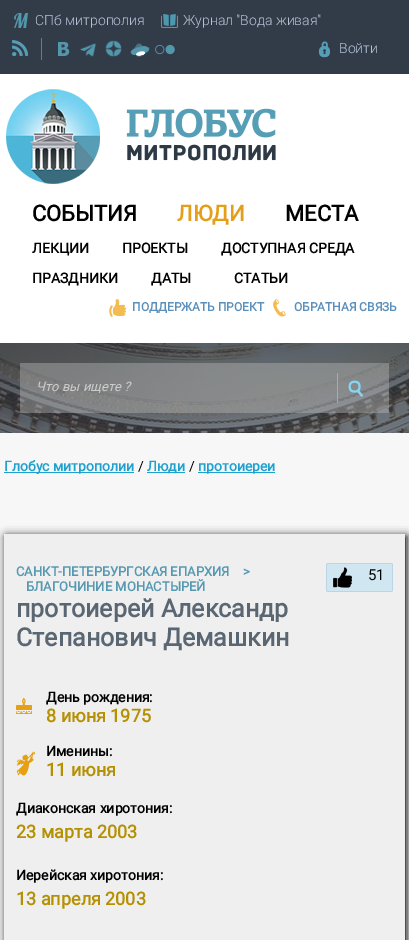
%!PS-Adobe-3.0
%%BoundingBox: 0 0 409 940
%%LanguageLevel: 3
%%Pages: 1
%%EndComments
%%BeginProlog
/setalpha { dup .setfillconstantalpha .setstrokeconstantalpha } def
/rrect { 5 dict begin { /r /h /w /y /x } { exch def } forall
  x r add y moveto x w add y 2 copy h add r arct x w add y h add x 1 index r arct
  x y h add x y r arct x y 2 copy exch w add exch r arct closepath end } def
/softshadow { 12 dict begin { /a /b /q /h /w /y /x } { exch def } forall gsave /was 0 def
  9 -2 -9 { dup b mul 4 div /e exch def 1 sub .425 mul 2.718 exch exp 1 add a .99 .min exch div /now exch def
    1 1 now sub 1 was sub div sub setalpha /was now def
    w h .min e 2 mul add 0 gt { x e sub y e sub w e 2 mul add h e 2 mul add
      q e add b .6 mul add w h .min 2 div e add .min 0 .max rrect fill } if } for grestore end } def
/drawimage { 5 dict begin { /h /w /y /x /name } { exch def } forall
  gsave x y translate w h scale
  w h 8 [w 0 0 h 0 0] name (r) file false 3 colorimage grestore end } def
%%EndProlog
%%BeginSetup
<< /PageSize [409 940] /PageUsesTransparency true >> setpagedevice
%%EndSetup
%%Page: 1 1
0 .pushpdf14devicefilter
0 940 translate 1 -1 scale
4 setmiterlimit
1 setgray
0 0 409 940 rectfill
0.196 0.235 0.282 setrgbcolor
0 0 409 74 rectfill
(images/1.raw) 14 13 14 15 drawimage
(images/2.raw) 161 14 17 14 drawimage
(images/3.raw) 12 40 16 16 drawimage
0.459 0.459 0.502 setrgbcolor
41 38 1 22 rectfill
(images/4.raw) 58 42 12 14 drawimage
(images/5.raw) 80 43 16 14 drawimage
(images/6.raw) 105 40 17 17 drawimage
(images/7.raw) 130 43 20 14 drawimage
(images/8.raw) 155 44 20 11 drawimage
(images/9.raw) 318 41 12 17 drawimage
(images/10.raw) 6 89 270 95 drawimage
(images/11.raw) 109 299 17 18 drawimage
(images/12.raw) 273 299 13 18 drawimage
(images/13.raw) 0 343 409 90 drawimage
0.43 setalpha
0.714 setgray
20 363 369 50 rectfill
1 setalpha
0.667 setgray
337 373 1 30 rectfill
(images/14.raw) 348 380 15 17 drawimage
0.969 setgray
0 433 409 507 rectfill
0.118 0.631 0.808 setrgbcolor
4 472 130 1 rectfill
147 472 38 1 rectfill
198 472 77 1 rectfill
0 setgray
6 536 401 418 0 4.5 1 softshadow
0.937 setgray
4 534 401 406 rectfill
(images/15.raw) 326 563 67 29 drawimage
(images/16.raw) 16 697 16 17 drawimage
(images/17.raw) 16 751 20 25 drawimage
/Roboto-Light [14 0 0 -14 0 0] selectfont
0.702 0.765 0.839 setrgbcolor
35 25 moveto (СПб митрополия) show
183 25 moveto (Журнал "Вода живая") show
339 53 moveto (Войти) show
/Roboto-Bold [22 0 0 -22 0 0] selectfont
0 setgray
32 221 moveto (СОБЫТИЯ) show
0.894 0.624 0.102 setrgbcolor
177 221 moveto (ЛЮДИ) show
0 setgray
285 221 moveto (МЕСТА) show
/Roboto-Bold [14 0 0 -14 0 0] selectfont
32 253 moveto (ЛЕКЦИИ) show
122 253 moveto (ПРОЕКТЫ) show
221 253 moveto (ДОСТУПНАЯ СРЕДА) show
32 283 moveto (ПРАЗДНИКИ) show
151 283 moveto (ДАТЫ) show
234 283 moveto (СТАТЬИ) show
/Roboto-Bold [12 0 0 -12 0 0] selectfont
0.353 0.565 0.733 setrgbcolor
132 311 moveto (ПОДДЕРЖАТЬ ПРОЕКТ) show
294 311 moveto (ОБРАТНАЯ СВЯЗЬ) show
/Roboto-Italic [13 0 0 -13 0 0] selectfont
0.8 setgray
36 391 moveto (Что вы ищете ?) show
/Roboto-Bold [14 0 0 -14 0 0] selectfont
0.118 0.631 0.808 setrgbcolor
4 471 moveto (Глобус митрополии) show
/Roboto-Regular [14 0 0 -14 0 0] selectfont
0 setgray
138 471 moveto (/) show
/Roboto-Bold [14 0 0 -14 0 0] selectfont
0.118 0.631 0.808 setrgbcolor
147 471 moveto (Люди) show
/Roboto-Regular [14 0 0 -14 0 0] selectfont
0 setgray
189 471 moveto (/) show
/Roboto-Bold [14 0 0 -14 0 0] selectfont
0.118 0.631 0.808 setrgbcolor
198 471 moveto (протоиереи) show
/Roboto-Bold [13 0 0 -13 0 0] selectfont
0.333 0.596 0.69 setrgbcolor
16 576 moveto (САНКТ-ПЕТЕРБУРГСКАЯ ЕПАРХИЯ) show
243 576 moveto (>) show
26 591 moveto (БЛАГОЧИНИЕ МОНАСТЫРЕЙ) show
/Roboto-Regular [15 0 0 -15 0 0] selectfont
0 setgray
368 580 moveto (51) show
/Roboto-Bold [25 0 0 -25 0 0] selectfont
0.353 0.404 0.451 setrgbcolor
16 617 moveto (протоиерей Александр) show
16 646 moveto (Степанович Демашкин) show
/Roboto-Bold [14 0 0 -14 0 0] selectfont
0 setgray
46 702 moveto (День рождения:) show
/Roboto-Bold [18 0 0 -18 0 0] selectfont
0.71 0.565 0 setrgbcolor
46 722 moveto (8 июня 1975) show
/Roboto-Bold [14 0 0 -14 0 0] selectfont
0 setgray
46 756 moveto (Именины:) show
/Roboto-Bold [18 0 0 -18 0 0] selectfont
0.71 0.565 0 setrgbcolor
46 776 moveto (11 июня) show
/Roboto-Bold [14 0 0 -14 0 0] selectfont
0 setgray
16 813 moveto (Диаконская хиротония:) show
/Roboto-Bold [18 0 0 -18 0 0] selectfont
0.71 0.565 0 setrgbcolor
16 838 moveto (23 марта 2003) show
/Roboto-Bold [14 0 0 -14 0 0] selectfont
0 setgray
16 880 moveto (Иерейская хиротония:) show
/Roboto-Bold [18 0 0 -18 0 0] selectfont
0.71 0.565 0 setrgbcolor
16 905 moveto (13 апреля 2003) show
.poppdf14devicefilter showpage
%%EOF
